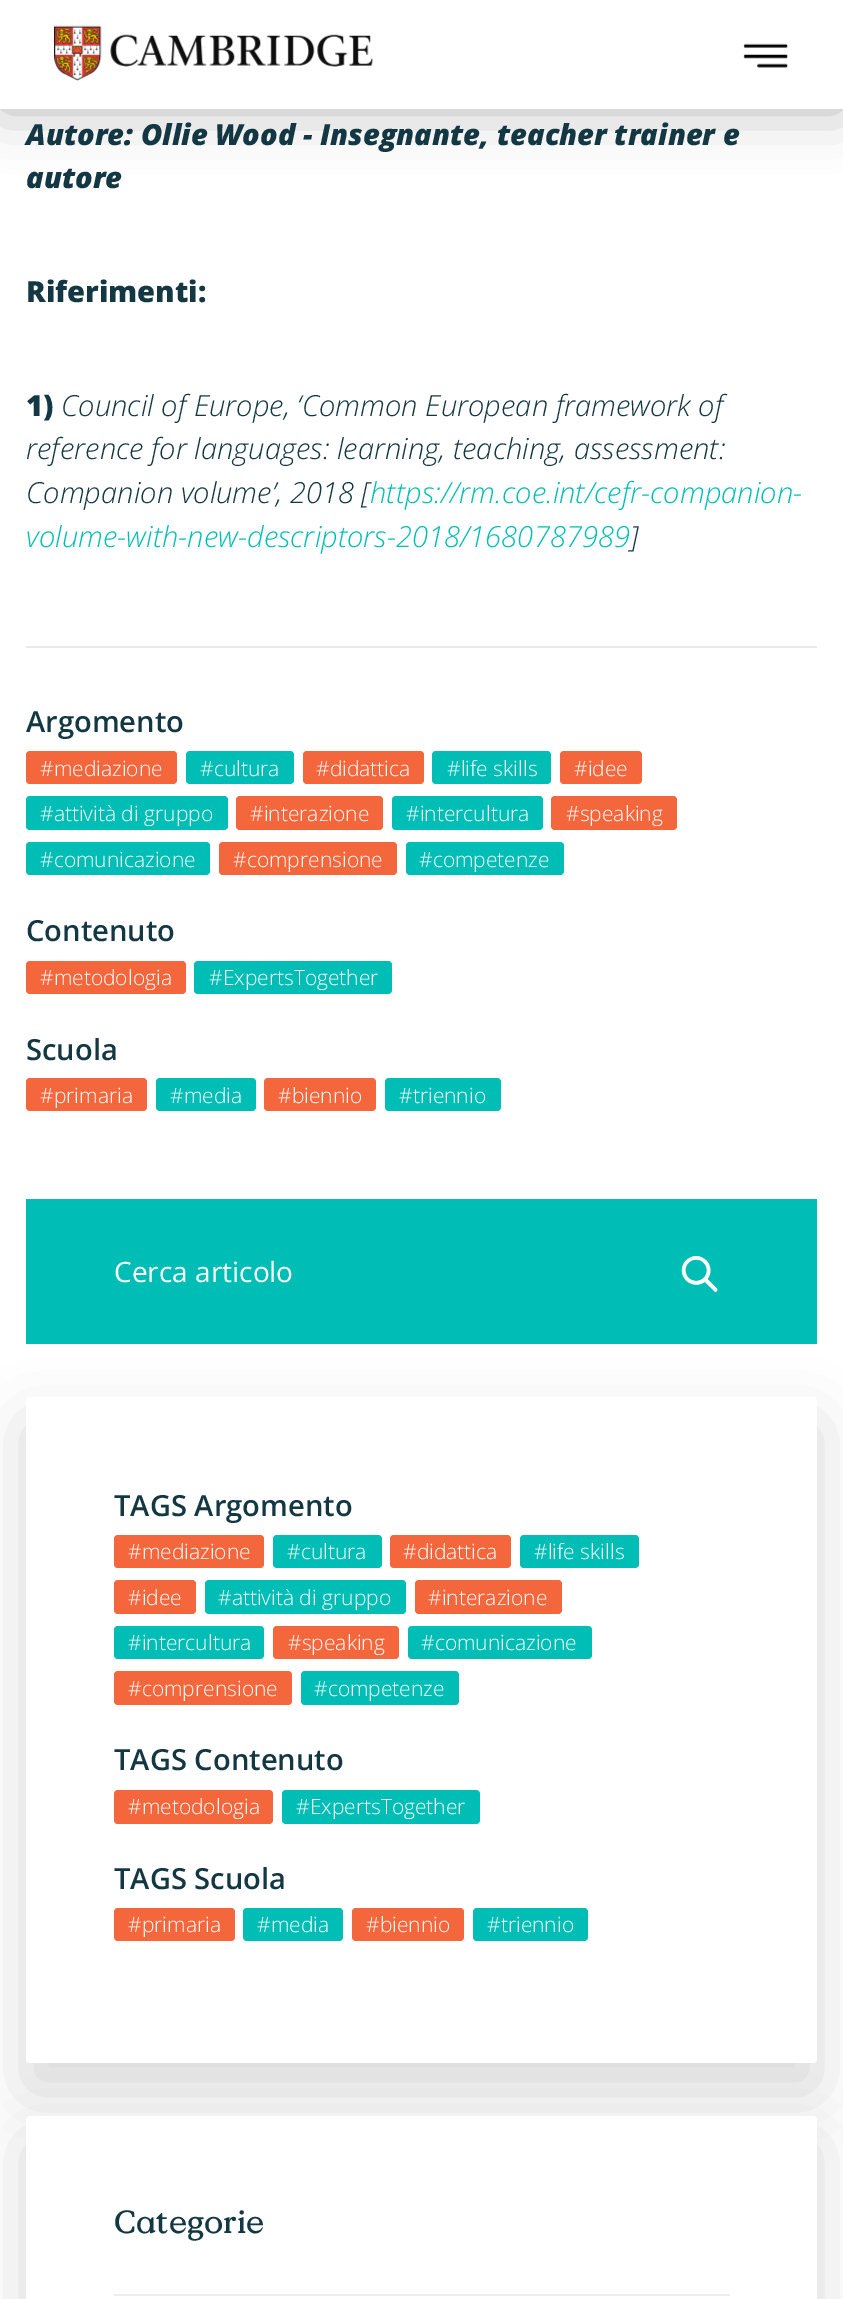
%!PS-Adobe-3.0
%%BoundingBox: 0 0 843 2299
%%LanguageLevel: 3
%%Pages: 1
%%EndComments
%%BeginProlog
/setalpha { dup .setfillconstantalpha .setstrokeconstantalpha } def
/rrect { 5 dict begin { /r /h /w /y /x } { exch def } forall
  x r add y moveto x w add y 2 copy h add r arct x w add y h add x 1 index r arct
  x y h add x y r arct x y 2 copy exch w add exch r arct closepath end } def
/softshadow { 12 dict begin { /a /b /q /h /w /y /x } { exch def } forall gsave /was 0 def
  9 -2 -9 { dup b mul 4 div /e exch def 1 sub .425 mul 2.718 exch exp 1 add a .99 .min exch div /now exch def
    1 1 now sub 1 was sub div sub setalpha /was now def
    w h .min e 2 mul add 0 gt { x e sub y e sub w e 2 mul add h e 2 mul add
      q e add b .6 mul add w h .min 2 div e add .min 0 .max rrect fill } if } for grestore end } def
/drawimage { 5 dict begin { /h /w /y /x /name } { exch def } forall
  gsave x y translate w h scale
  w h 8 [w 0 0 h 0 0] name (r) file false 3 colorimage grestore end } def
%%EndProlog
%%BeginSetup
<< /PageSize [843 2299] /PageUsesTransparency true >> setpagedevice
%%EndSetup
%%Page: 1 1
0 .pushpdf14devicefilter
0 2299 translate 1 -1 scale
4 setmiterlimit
1 setgray
0 0 843 2299 rectfill
0 setgray
0 0 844 109 0 29 0.3 softshadow
1 setgray
0 0 843 109 rectfill
(images/1.raw) 54 25 320 56 drawimage
(images/2.raw) 743 43 45 25 drawimage
0.91 0.91 0.937 setrgbcolor
26 646 791 2 rectfill
0.957 0.4 0.231 setrgbcolor
26 751 151 33 4 rrect fill
0 0.741 0.714 setrgbcolor
186 751 108 33 4 rrect fill
0.957 0.4 0.231 setrgbcolor
303 751 121 33 4 rrect fill
0 0.741 0.714 setrgbcolor
432 751 119 33 4 rrect fill
0.957 0.4 0.231 setrgbcolor
560 751 82 33 4 rrect fill
0 0.741 0.714 setrgbcolor
26 796 202 34 4 rrect fill
0.957 0.4 0.231 setrgbcolor
236 796 147 34 4 rrect fill
0 0.741 0.714 setrgbcolor
392 796 151 34 4 rrect fill
0.957 0.4 0.231 setrgbcolor
551 796 126 34 4 rrect fill
0 0.741 0.714 setrgbcolor
26 842 184 33 4 rrect fill
0.957 0.4 0.231 setrgbcolor
219 842 178 33 4 rrect fill
0 0.741 0.714 setrgbcolor
406 842 158 33 4 rrect fill
0.957 0.4 0.231 setrgbcolor
26 961 160 33 4 rrect fill
0 0.741 0.714 setrgbcolor
194 961 198 33 4 rrect fill
0.957 0.4 0.231 setrgbcolor
26 1078 121 33 4 rrect fill
0 0.741 0.714 setrgbcolor
156 1078 100 33 4 rrect fill
0.957 0.4 0.231 setrgbcolor
264 1078 112 33 4 rrect fill
0 0.741 0.714 setrgbcolor
385 1078 116 33 4 rrect fill
0 setgray
26 1423 791 667 4 30.5 0.15 softshadow
0 0.741 0.714 setrgbcolor
26 1199 791 145 rectfill
(images/3.raw) 681 1256 37 36 drawimage
1 setgray
26 1397 791 666 4 rrect fill
0.957 0.4 0.231 setrgbcolor
114 1535 150 33 4 rrect fill
0 0.741 0.714 setrgbcolor
273 1535 109 33 4 rrect fill
0.957 0.4 0.231 setrgbcolor
390 1535 121 33 4 rrect fill
0 0.741 0.714 setrgbcolor
520 1535 119 33 4 rrect fill
0.957 0.4 0.231 setrgbcolor
114 1580 82 34 4 rrect fill
0 0.741 0.714 setrgbcolor
205 1580 201 34 4 rrect fill
0.957 0.4 0.231 setrgbcolor
415 1580 147 34 4 rrect fill
0 0.741 0.714 setrgbcolor
114 1626 150 33 4 rrect fill
0.957 0.4 0.231 setrgbcolor
273 1626 126 33 4 rrect fill
0 0.741 0.714 setrgbcolor
408 1626 184 33 4 rrect fill
0.957 0.4 0.231 setrgbcolor
114 1671 178 34 4 rrect fill
0 0.741 0.714 setrgbcolor
301 1671 158 34 4 rrect fill
0.957 0.4 0.231 setrgbcolor
114 1790 159 34 4 rrect fill
0 0.741 0.714 setrgbcolor
282 1790 198 34 4 rrect fill
0.957 0.4 0.231 setrgbcolor
114 1908 121 33 4 rrect fill
0 0.741 0.714 setrgbcolor
243 1908 100 33 4 rrect fill
0.957 0.4 0.231 setrgbcolor
352 1908 112 33 4 rrect fill
0 0.741 0.714 setrgbcolor
473 1908 115 33 4 rrect fill
0 setgray
26 2142 791 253 4 30.5 0.15 softshadow
1 setgray
26 2116 791 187 4 rrect fill
0.933 setgray
114 2294 616 2 rectfill
/OpenSans-ExtraBoldItalic [29.1 0 0 -29.1 0 0] selectfont
0.075 0.22 0.267 setrgbcolor
26 145 moveto (Autore: Ollie Wood - Insegnante, teacher trainer e) show
26 188 moveto (autore) show
/OpenSans-ExtraBold [29.1 0 0 -29.1 0 0] selectfont
26 302 moveto (Riferimenti:) show
26 416 moveto (1\)) show
/OpenSans-LightItalic [29.1 0 0 -29.1 0 0] selectfont
61 416 moveto (Council of Europe, ‘Common European framework of) show
26 459 moveto (reference for languages: learning, teaching, assessment:) show
26 503 moveto (Companion volume’, 2018 [) show
0 0.741 0.714 setrgbcolor
370 503 moveto (https://rm.coe.int/cefr-companion-) show
26 547 moveto (volume-with-new-descriptors-2018/1680787989) show
0.075 0.22 0.267 setrgbcolor
630 547 moveto (]) show
/OpenSans-SemiBold [29.1 0 0 -29.1 0 0] selectfont
26 732 moveto (Argomento) show
/OpenSans-Light [21 0 0 -21 0 0] selectfont
1 setgray
40 776 moveto (#mediazione) show
200 776 moveto (#cultura) show
316 776 moveto (#didattica) show
447 776 moveto (#life skills) show
574 776 moveto (#idee) show
40 821 moveto (#attività di gruppo) show
250 821 moveto (#interazione) show
406 821 moveto (#intercultura) show
566 821 moveto (#speaking) show
40 867 moveto (#comunicazione) show
233 867 moveto (#comprensione) show
419 867 moveto (#competenze) show
/OpenSans-SemiBold [29.1 0 0 -29.1 0 0] selectfont
0.075 0.22 0.267 setrgbcolor
26 941 moveto (Contenuto) show
/OpenSans-Light [21 0 0 -21 0 0] selectfont
1 setgray
40 985 moveto (#metodologia) show
209 985 moveto (#ExpertsTogether) show
/OpenSans-SemiBold [29.1 0 0 -29.1 0 0] selectfont
0.075 0.22 0.267 setrgbcolor
26 1060 moveto (Scuola) show
/OpenSans-Light [21 0 0 -21 0 0] selectfont
1 setgray
40 1103 moveto (#primaria) show
170 1103 moveto (#media) show
278 1103 moveto (#biennio) show
399 1103 moveto (#triennio) show
/OpenSans-Regular [28 0 0 -28 0 0] selectfont
114 1282 moveto (Cerca articolo) show
/OpenSans-SemiBold [29.1 0 0 -29.1 0 0] selectfont
0.075 0.22 0.267 setrgbcolor
114 1516 moveto (TAGS Argomento) show
/OpenSans-Light [21 0 0 -21 0 0] selectfont
1 setgray
128 1559 moveto (#mediazione) show
287 1559 moveto (#cultura) show
403 1559 moveto (#didattica) show
534 1559 moveto (#life skills) show
128 1605 moveto (#idee) show
218 1605 moveto (#attività di gruppo) show
428 1605 moveto (#interazione) show
128 1650 moveto (#intercultura) show
288 1650 moveto (#speaking) show
421 1650 moveto (#comunicazione) show
128 1696 moveto (#comprensione) show
314 1696 moveto (#competenze) show
/OpenSans-SemiBold [29.1 0 0 -29.1 0 0] selectfont
0.075 0.22 0.267 setrgbcolor
114 1770 moveto (TAGS Contenuto) show
/OpenSans-Light [21 0 0 -21 0 0] selectfont
1 setgray
128 1814 moveto (#metodologia) show
296 1814 moveto (#ExpertsTogether) show
/OpenSans-SemiBold [29.1 0 0 -29.1 0 0] selectfont
0.075 0.22 0.267 setrgbcolor
114 1889 moveto (TAGS Scuola) show
/OpenSans-Light [21 0 0 -21 0 0] selectfont
1 setgray
128 1932 moveto (#primaria) show
257 1932 moveto (#media) show
366 1932 moveto (#biennio) show
487 1932 moveto (#triennio) show
/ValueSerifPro-Medium [32 0 0 -32 0 0] selectfont
0.075 0.22 0.267 setrgbcolor
114 2233 moveto (Categorie) show
.poppdf14devicefilter showpage
%%EOF
